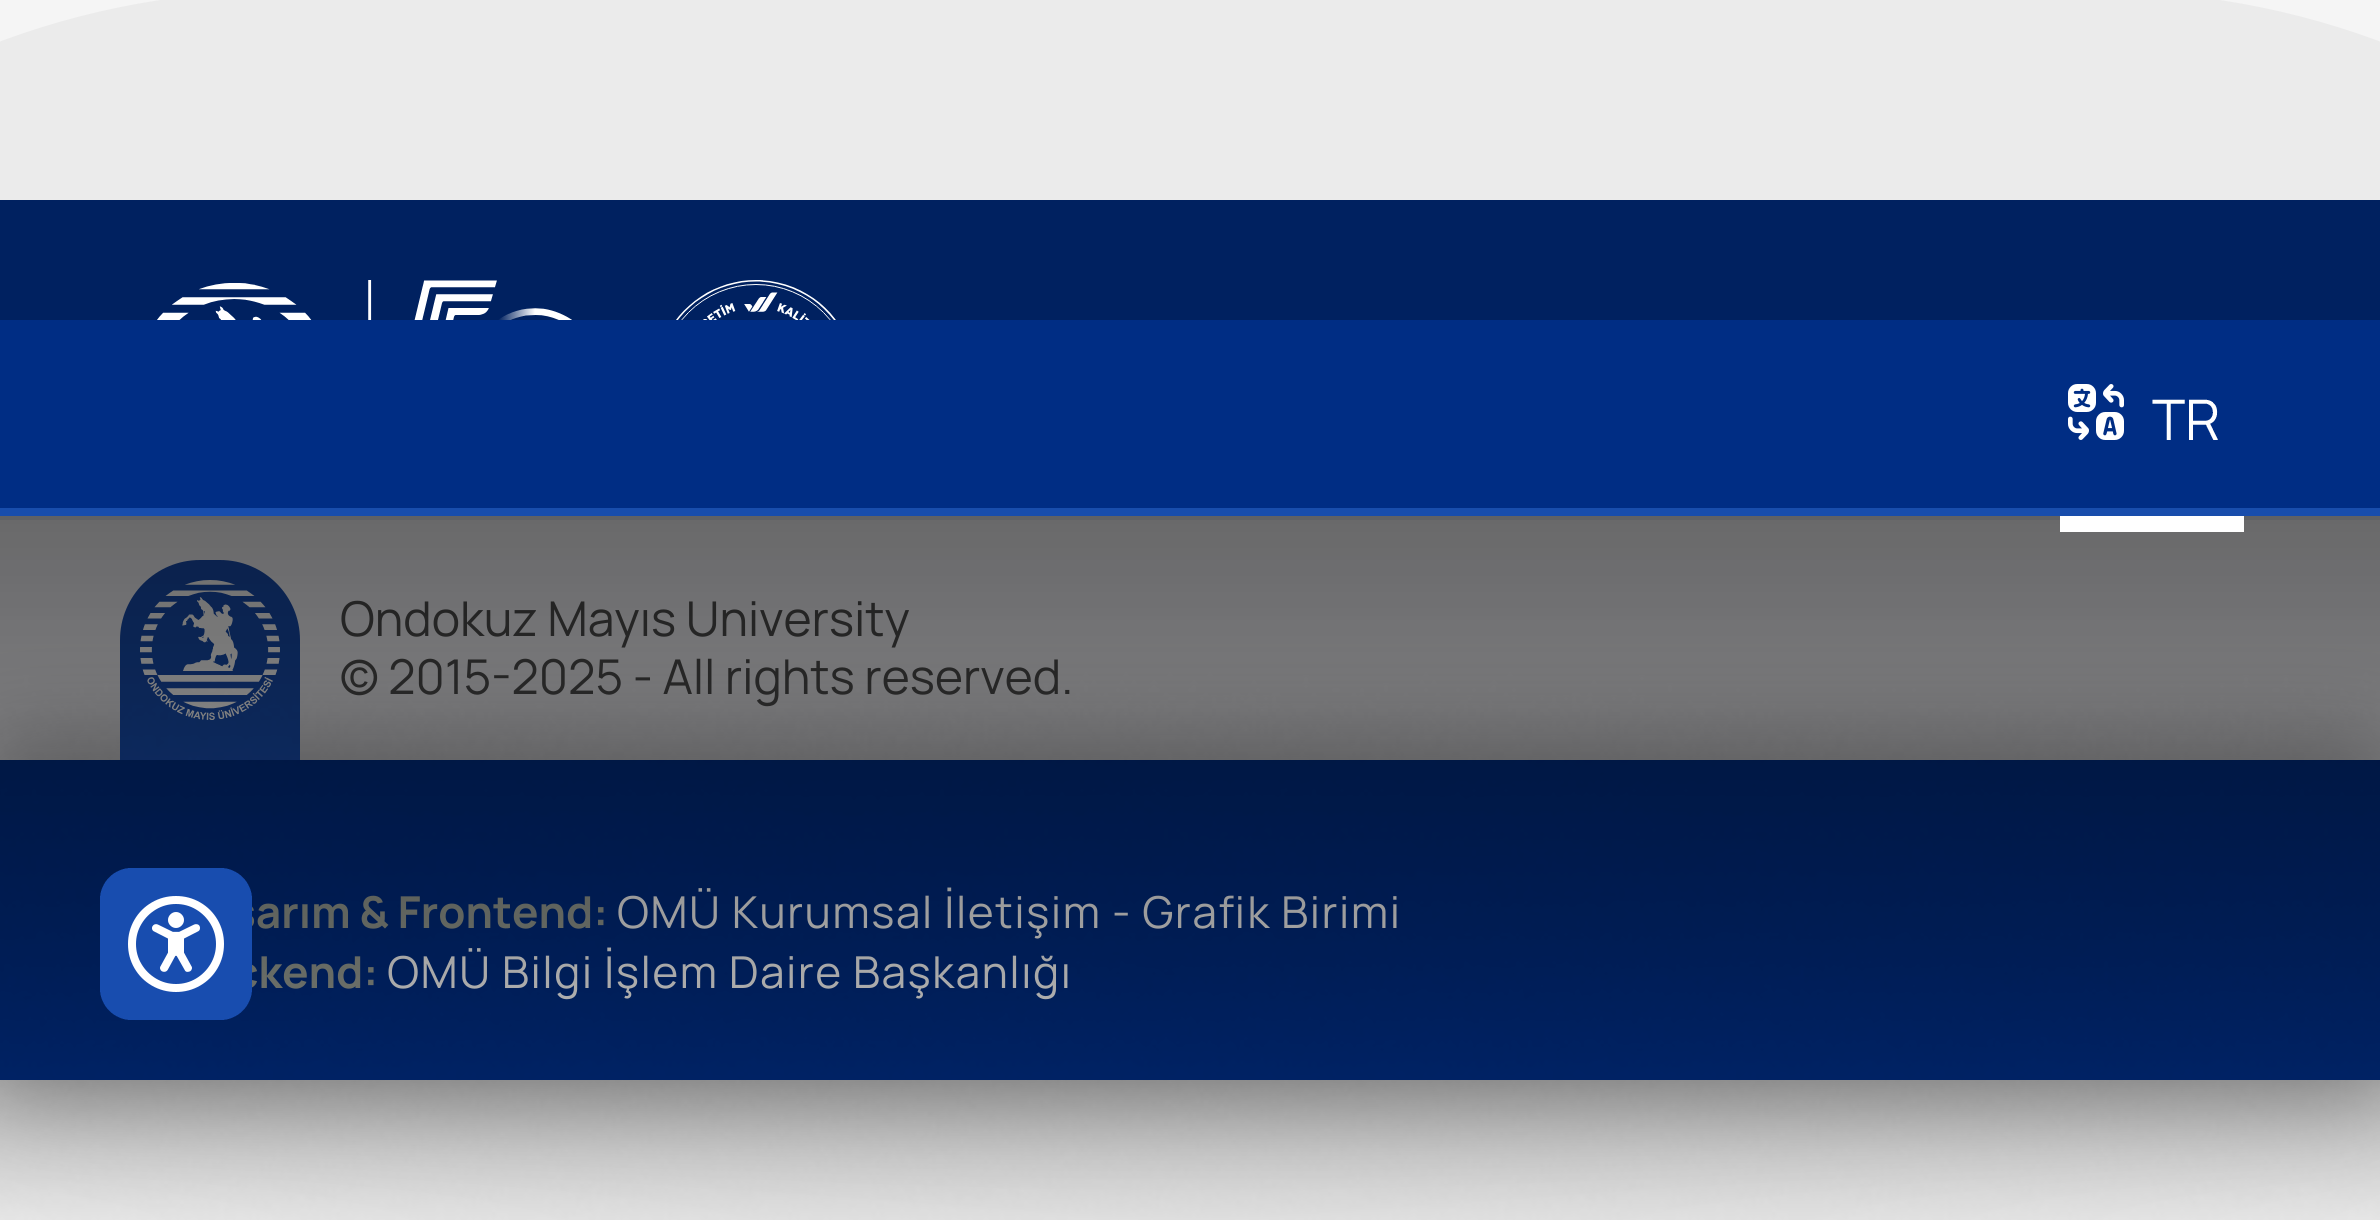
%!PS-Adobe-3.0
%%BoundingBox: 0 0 2380 1220
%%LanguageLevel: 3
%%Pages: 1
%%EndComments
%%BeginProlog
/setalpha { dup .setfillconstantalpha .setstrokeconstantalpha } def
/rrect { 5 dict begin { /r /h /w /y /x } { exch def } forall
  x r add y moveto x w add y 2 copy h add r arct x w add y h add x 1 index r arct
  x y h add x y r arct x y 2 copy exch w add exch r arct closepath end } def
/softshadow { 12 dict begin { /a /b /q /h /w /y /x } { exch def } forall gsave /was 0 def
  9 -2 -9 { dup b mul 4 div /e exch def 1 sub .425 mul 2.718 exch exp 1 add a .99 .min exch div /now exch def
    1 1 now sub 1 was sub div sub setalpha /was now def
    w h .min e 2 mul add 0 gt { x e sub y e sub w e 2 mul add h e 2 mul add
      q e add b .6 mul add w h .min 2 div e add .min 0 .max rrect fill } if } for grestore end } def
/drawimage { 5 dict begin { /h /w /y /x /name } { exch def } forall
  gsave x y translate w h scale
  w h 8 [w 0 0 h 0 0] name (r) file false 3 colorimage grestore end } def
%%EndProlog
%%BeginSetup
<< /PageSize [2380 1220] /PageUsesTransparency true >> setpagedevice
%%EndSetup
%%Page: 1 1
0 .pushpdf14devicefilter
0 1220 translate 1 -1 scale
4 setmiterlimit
1 setgray
0 0 2380 1220 rectfill
0 setgray
0 516 2380 564 0 700 0.25 softshadow
0 0.129 0.376 setrgbcolor
0 200 2380 120 rectfill
(images/1.raw) 157 280 415 40 drawimage
(images/2.raw) 676 280 160 40 drawimage
0 0.176 0.518 setrgbcolor
0 320 2380 188 rectfill
0.094 0.302 0.675 setrgbcolor
0 508 2380 8 rectfill
(images/3.raw) 2068 384 56 56 drawimage
0.969 0.969 0.984 setrgbcolor
0 520 2380 240 rectfill
0.878 0.898 0.933 setrgbcolor
0 516 2380 4 rectfill
0 setgray
-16 744 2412 352 0 46 0.35 softshadow
0.094 0.302 0.686 setrgbcolor
newpath 200 560 moveto 220 560 lineto 264 560 300 596 300 640 curveto 300 760 lineto 120 760 lineto 120 640 lineto 120 596 156 560 200 560 curveto closepath fill
(images/5.raw) 140 580 140 140 drawimage
0 0.176 0.518 setrgbcolor
0 760 2380 320 rectfill
/Manrope-Regular [56 0 0 -56 0 0] selectfont
1 setgray
2152 440 moveto (TR) show
/Manrope-Regular [48 0 0 -48 0 0] selectfont
0.31 setgray
340 636 moveto (Ondokuz Mayıs University) show
340 694 moveto (© 2015-2025 - All rights reserved.) show
/Manrope-Bold [44 0 0 -44 0 0] selectfont
0.612 0.635 0.6 setrgbcolor
256 928 moveto (arım & Frontend:) show
/Manrope-Regular [44 0 0 -44 0 0] selectfont
1 setgray
617 928 moveto 1.55 0 (OMÜ Kurumsal İletişim - Grafik Birimi) ashow
/Manrope-Bold [44 0 0 -44 0 0] selectfont
0.612 0.635 0.6 setrgbcolor
258 988 moveto (kend:) show
/Manrope-Regular [44 0 0 -44 0 0] selectfont
1 setgray
387 988 moveto 1.55 0 (OMÜ Bilgi İşlem Daire Başkanlığı) ashow
(images/4.raw) 0 516 2380 704 drawimage
0.094 0.302 0.686 setrgbcolor
100 868 152 152 32 rrect fill
(images/6.raw) 128 896 96 96 drawimage
1 setgray
2060 516 184 16 rectfill
.poppdf14devicefilter showpage
%%EOF
